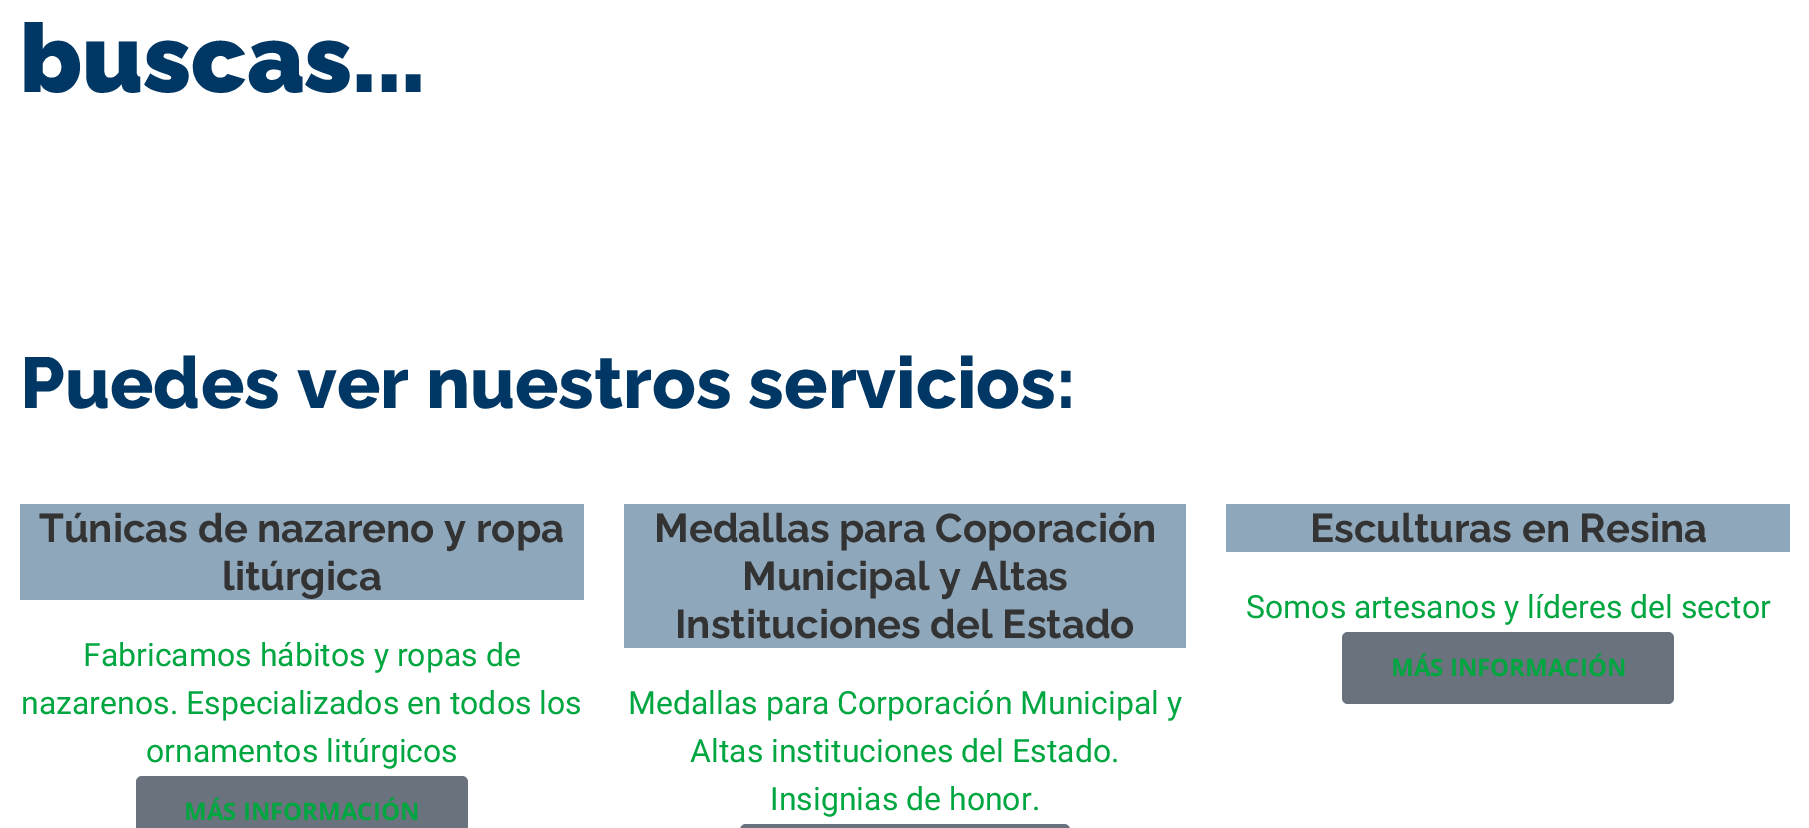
%!PS-Adobe-3.0
%%BoundingBox: 0 0 1809 828
%%LanguageLevel: 3
%%Pages: 1
%%EndComments
%%BeginProlog
/rrect { 5 dict begin { /r /h /w /y /x } { exch def } forall
  x r add y moveto x w add y 2 copy h add r arct x w add y h add x 1 index r arct
  x y h add x y r arct x y 2 copy exch w add exch r arct closepath end } def
%%EndProlog
%%BeginSetup
<< /PageSize [1809 828] >> setpagedevice
%%EndSetup
%%Page: 1 1
0 828 translate 1 -1 scale
4 setmiterlimit
1 setgray
0 0 1809 828 rectfill
0.561 0.655 0.733 setrgbcolor
20 504 564 96 rectfill
0.412 0.447 0.49 setrgbcolor
136 776 332 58 6 rrect fill
0.561 0.655 0.733 setrgbcolor
624 504 562 144 rectfill
0.412 0.447 0.49 setrgbcolor
740 824 330 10 6 rrect fill
0.561 0.655 0.733 setrgbcolor
1226 504 564 48 rectfill
0.412 0.447 0.49 setrgbcolor
1342 632 332 72 6 rrect fill
/Raleway-Black [96 0 0 -96 0 0] selectfont
0 0.216 0.392 setrgbcolor
20 92 moveto (buscas...) show
/Raleway-ExtraBold [72 0 0 -72 0 0] selectfont
20 408 moveto (Puedes ver nuestros servicios:) show
/Raleway-Bold [40 0 0 -40 0 0] selectfont
0.2 setgray
39 542 moveto (Túnicas de nazareno y ropa) show
222 590 moveto (litúrgica) show
/Roboto-Regular [32 0 0 -32 0 0] selectfont
0 0.651 0.247 setrgbcolor
83 666 moveto (Fabricamos hábitos y ropas de) show
21 714 moveto (nazarenos. Especializados en todos los) show
146 762 moveto (ornamentos litúrgicos) show
/OpenSans-Bold [24 0 0 -24 0 0] selectfont
184 820 moveto (MÁS INFORMACIÓN) show
/Raleway-Bold [40 0 0 -40 0 0] selectfont
0.2 setgray
654 542 moveto (Medallas para Coporación) show
742 590 moveto (Municipal y Altas) show
675 638 moveto (Instituciones del Estado) show
/Roboto-Regular [32 0 0 -32 0 0] selectfont
0 0.651 0.247 setrgbcolor
628 714 moveto (Medallas para Corporación Municipal y) show
690 762 moveto (Altas instituciones del Estado.) show
770 810 moveto (Insignias de honor.) show
/Raleway-Bold [40 0 0 -40 0 0] selectfont
0.2 setgray
1310 542 moveto (Esculturas en Resina) show
/Roboto-Regular [32 0 0 -32 0 0] selectfont
0 0.651 0.247 setrgbcolor
1246 618 moveto (Somos artesanos y líderes del sector) show
/OpenSans-Bold [24 0 0 -24 0 0] selectfont
1391 676 moveto (MÁS INFORMACIÓN) show
showpage
%%EOF
